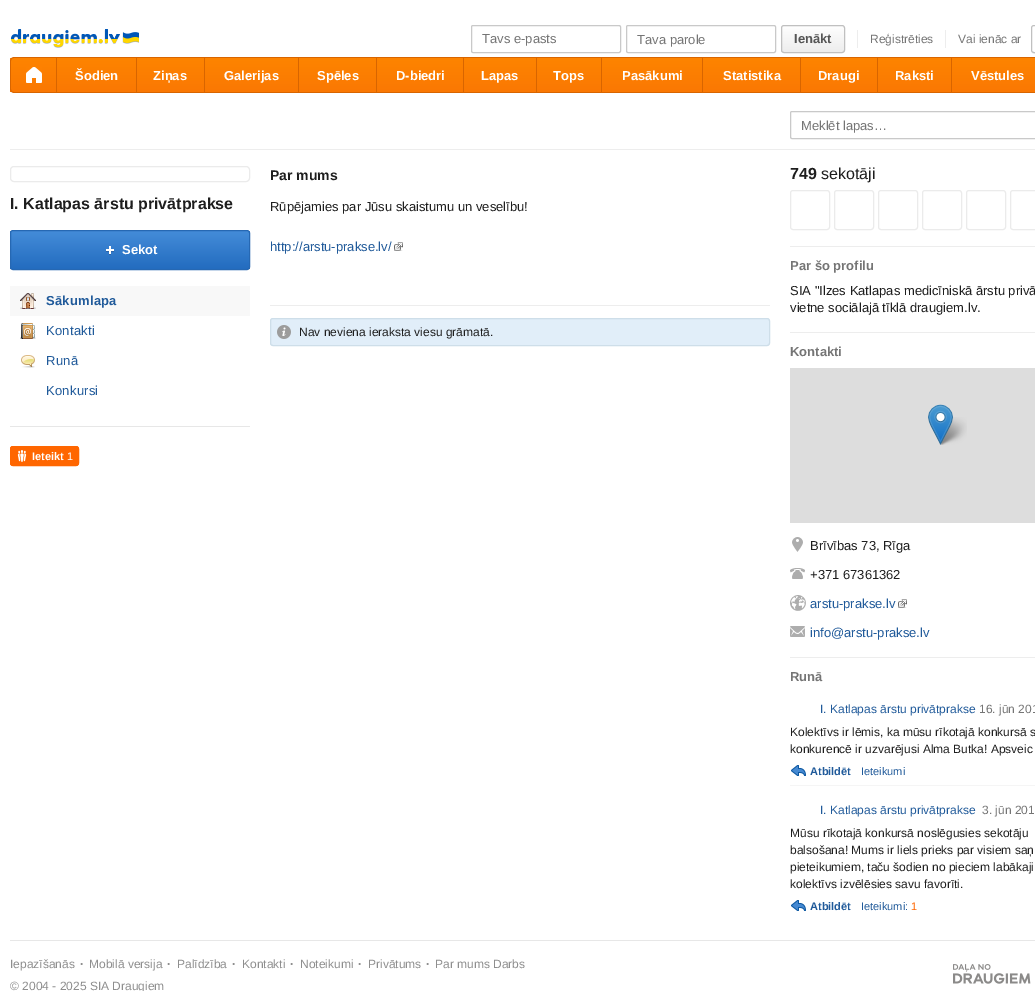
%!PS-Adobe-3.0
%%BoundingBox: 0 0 1035 991
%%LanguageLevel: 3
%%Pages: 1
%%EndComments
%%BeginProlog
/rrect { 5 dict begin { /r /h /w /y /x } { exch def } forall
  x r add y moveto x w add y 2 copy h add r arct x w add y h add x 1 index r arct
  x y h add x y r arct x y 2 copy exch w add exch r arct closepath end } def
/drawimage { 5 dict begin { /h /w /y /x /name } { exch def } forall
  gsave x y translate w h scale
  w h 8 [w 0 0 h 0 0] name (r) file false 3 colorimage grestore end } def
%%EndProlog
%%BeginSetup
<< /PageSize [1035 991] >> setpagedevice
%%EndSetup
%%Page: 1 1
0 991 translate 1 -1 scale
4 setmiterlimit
1 setgray
0 0 1035 991 rectfill
(images/1.raw) 11 29 128 19 drawimage
0.788 setgray
471.5 25.5 149 27 1.5 rrect stroke
626.5 25.5 149 27 1.5 rrect stroke
gsave
781 25 64 28 rectclip
0.961 setgray
newpath 781 50 moveto 781 56 789 54 794 54 curveto 832 54 lineto 837 54 845 56 845 50 curveto 845 52 844 53 842 53 curveto 784 53 lineto 782 53 781 52 781 50 curveto closepath fill
grestore
gsave
781 25 64 28 3 rrect clip newpath
gsave newpath 781 26 moveto 845 26 lineto 845 52 lineto 781 52 lineto closepath clip newpath
<< /ShadingType 2 /ColorSpace /DeviceRGB /Coords [813 26 813 52] /Extend [true true] /Function << /FunctionType 2 /Domain [0 1] /C0 [0.996 0.996 0.996] /C1 [0.929 0.929 0.929] /N 1 >> >> shfill grestore
grestore
0.753 setgray
781.5 25.5 63 27 2.5 rrect stroke
0.929 setgray
857 30 1 18 rectfill
945 30 1 18 rectfill
0.961 setgray
newpath 1031 50 moveto 1031 54.5 1034 54 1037.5 54 curveto 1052.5 54 lineto 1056 54 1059 54.5 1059 50 curveto 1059 51.5 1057.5 53 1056 53 curveto 1034 53 lineto 1032.5 53 1031 51.5 1031 50 curveto closepath fill
0.753 setgray
1031.5 25.5 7 27 2.5 rrect stroke
gsave
newpath 14 57 moveto 56 57 lineto 56 93 lineto 14 93 lineto 12 93 10 91 10 89 curveto 10 61 lineto 10 59 12 57 14 57 curveto closepath clip newpath
gsave newpath 10 58 moveto 56 58 lineto 56 92 lineto 10 92 lineto closepath clip newpath
<< /ShadingType 2 /ColorSpace /DeviceRGB /Coords [34 58 34 92] /Extend [true true] /Function << /FunctionType 2 /Domain [0 1] /C0 [0.996 0.518 0] /C1 [0.98 0.471 0.012] /N 1 >> >> shfill grestore
grestore
0.847 0.396 0 setrgbcolor
newpath 14 57 moveto 56 57 lineto 56 93 lineto 14 93 lineto 12 93 10 91 10 89 curveto 10 61 lineto 10 59 12 57 14 57 curveto closepath 14 58 moveto 56 58 lineto 56 92 lineto 14 92 lineto 12 92 11 91 11 89 curveto 11 61 lineto 11 59 12 58 14 58 curveto closepath eofill
(images/2.raw) 26 67 16 16 drawimage
gsave newpath 57 58 moveto 136 58 lineto 136 92 lineto 57 92 lineto closepath clip newpath
<< /ShadingType 2 /ColorSpace /DeviceRGB /Coords [97 58 97 92] /Extend [true true] /Function << /FunctionType 2 /Domain [0 1] /C0 [0.996 0.518 0] /C1 [0.98 0.471 0.012] /N 1 >> >> shfill grestore
56 57 979 1 rectfill
56 92 979 1 rectfill
56 57 1 36 rectfill
gsave newpath 137 58 moveto 204 58 lineto 204 92 lineto 137 92 lineto closepath clip newpath
<< /ShadingType 2 /ColorSpace /DeviceRGB /Coords [171 58 171 92] /Extend [true true] /Function << /FunctionType 2 /Domain [0 1] /C0 [0.996 0.518 0] /C1 [0.98 0.471 0.012] /N 1 >> >> shfill grestore
136 57 1 36 rectfill
gsave newpath 205 58 moveto 298 58 lineto 298 92 lineto 205 92 lineto closepath clip newpath
<< /ShadingType 2 /ColorSpace /DeviceRGB /Coords [252 58 252 92] /Extend [true true] /Function << /FunctionType 2 /Domain [0 1] /C0 [0.996 0.518 0] /C1 [0.98 0.471 0.012] /N 1 >> >> shfill grestore
204 57 1 36 rectfill
gsave newpath 299 58 moveto 376 58 lineto 376 92 lineto 299 92 lineto closepath clip newpath
<< /ShadingType 2 /ColorSpace /DeviceRGB /Coords [338 58 338 92] /Extend [true true] /Function << /FunctionType 2 /Domain [0 1] /C0 [0.996 0.518 0] /C1 [0.98 0.471 0.012] /N 1 >> >> shfill grestore
298 57 1 36 rectfill
gsave newpath 377 58 moveto 463 58 lineto 463 92 lineto 377 92 lineto closepath clip newpath
<< /ShadingType 2 /ColorSpace /DeviceRGB /Coords [420 58 420 92] /Extend [true true] /Function << /FunctionType 2 /Domain [0 1] /C0 [0.996 0.518 0] /C1 [0.98 0.471 0.012] /N 1 >> >> shfill grestore
376 57 1 36 rectfill
gsave newpath 464 58 moveto 536 58 lineto 536 92 lineto 464 92 lineto closepath clip newpath
<< /ShadingType 2 /ColorSpace /DeviceRGB /Coords [500 58 500 92] /Extend [true true] /Function << /FunctionType 2 /Domain [0 1] /C0 [0.996 0.518 0] /C1 [0.98 0.471 0.012] /N 1 >> >> shfill grestore
463 57 1 36 rectfill
gsave newpath 537 58 moveto 601 58 lineto 601 92 lineto 537 92 lineto closepath clip newpath
<< /ShadingType 2 /ColorSpace /DeviceRGB /Coords [569 58 569 92] /Extend [true true] /Function << /FunctionType 2 /Domain [0 1] /C0 [0.996 0.518 0] /C1 [0.98 0.471 0.012] /N 1 >> >> shfill grestore
536 57 1 36 rectfill
gsave newpath 602 58 moveto 702 58 lineto 702 92 lineto 602 92 lineto closepath clip newpath
<< /ShadingType 2 /ColorSpace /DeviceRGB /Coords [652 58 652 92] /Extend [true true] /Function << /FunctionType 2 /Domain [0 1] /C0 [0.996 0.518 0] /C1 [0.98 0.471 0.012] /N 1 >> >> shfill grestore
601 57 1 36 rectfill
gsave newpath 703 58 moveto 800 58 lineto 800 92 lineto 703 92 lineto closepath clip newpath
<< /ShadingType 2 /ColorSpace /DeviceRGB /Coords [752 58 752 92] /Extend [true true] /Function << /FunctionType 2 /Domain [0 1] /C0 [0.996 0.518 0] /C1 [0.98 0.471 0.012] /N 1 >> >> shfill grestore
702 57 1 36 rectfill
gsave newpath 801 58 moveto 877 58 lineto 877 92 lineto 801 92 lineto closepath clip newpath
<< /ShadingType 2 /ColorSpace /DeviceRGB /Coords [839 58 839 92] /Extend [true true] /Function << /FunctionType 2 /Domain [0 1] /C0 [0.996 0.518 0] /C1 [0.98 0.471 0.012] /N 1 >> >> shfill grestore
800 57 1 36 rectfill
gsave newpath 878 58 moveto 951 58 lineto 951 92 lineto 878 92 lineto closepath clip newpath
<< /ShadingType 2 /ColorSpace /DeviceRGB /Coords [915 58 915 92] /Extend [true true] /Function << /FunctionType 2 /Domain [0 1] /C0 [0.996 0.518 0] /C1 [0.98 0.471 0.012] /N 1 >> >> shfill grestore
877 57 1 36 rectfill
gsave newpath 952 58 moveto 1035 58 lineto 1035 92 lineto 952 92 lineto closepath clip newpath
<< /ShadingType 2 /ColorSpace /DeviceRGB /Coords [998 58 998 92] /Extend [true true] /Function << /FunctionType 2 /Domain [0 1] /C0 [0.996 0.518 0] /C1 [0.98 0.471 0.012] /N 1 >> >> shfill grestore
951 57 1 36 rectfill
0.929 setgray
10 149 1025 1 rectfill
0.788 setgray
790.5 111.5 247 27 1.5 rrect stroke
0.922 setgray
10.5 166.5 239 15 3.5 rrect stroke
gsave
10 230 240 40 rectclip
newpath 10 267 moveto 10 269 11 271 13 271 curveto 247 271 lineto 249 271 250 269 250 267 curveto 250 269 249 270 247 270 curveto 13 270 lineto 11 270 10 269 10 267 curveto closepath fill
grestore
gsave
10 230 240 40 3 rrect clip newpath
gsave newpath 10 231 moveto 250 231 lineto 250 269 lineto 10 269 lineto closepath clip newpath
<< /ShadingType 2 /ColorSpace /DeviceRGB /Coords [130 231 130 269] /Extend [true true] /Function << /FunctionType 2 /Domain [0 1] /C0 [0.267 0.549 0.851] /C1 [0.137 0.424 0.749] /N 1 >> >> shfill grestore
grestore
0.149 0.408 0.702 setrgbcolor
10.5 230.5 239 39 2.5 rrect stroke
(images/3.raw) 106 246 8 9 drawimage
0.973 setgray
10 286 240 30 rectfill
(images/4.raw) 20 293 16 16 drawimage
(images/5.raw) 20 323 16 16 drawimage
(images/6.raw) 21 355 14 13 drawimage
0.906 setgray
10 426 240 1 rectfill
1 0.4 0 setrgbcolor
10 446 69 20 3 rrect fill
10.5 446.5 68 19 2.5 rrect stroke
(images/7.raw) 17 450 10 12 drawimage
(images/8.raw) 394 242 9 9 drawimage
0.929 setgray
270 305 500 1 rectfill
0.882 0.933 0.976 setrgbcolor
270 318 500 28 3 rrect fill
(images/9.raw) 277 325 14 14 drawimage
0.808 0.871 0.914 setrgbcolor
270.5 318.5 499 27 2.5 rrect stroke
0.922 setgray
790.5 190.5 39 39 2.5 rrect stroke
834.5 190.5 39 39 2.5 rrect stroke
878.5 190.5 39 39 2.5 rrect stroke
922.5 190.5 39 39 2.5 rrect stroke
966.5 190.5 39 39 2.5 rrect stroke
1010.5 190.5 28 39 2.5 rrect stroke
0.929 setgray
790 246 245 1 rectfill
790 332 245 1 rectfill
0.867 setgray
790 368 245 155 rectfill
(images/11.raw) 938 417 29 28 drawimage
(images/10.raw) 928 404 25 41 drawimage
(images/12.raw) 792 537 11 15 drawimage
(images/13.raw) 790 568 15 11 drawimage
(images/14.raw) 790 595 16 16 drawimage
(images/8.raw) 898 599 9 9 drawimage
(images/15.raw) 790 626 15 11 drawimage
0.929 setgray
790 657 245 1 rectfill
0.961 setgray
790 785 245 1 rectfill
(images/16.raw) 791 765 15 11 drawimage
(images/16.raw) 791 900 15 11 drawimage
0.906 setgray
10 940 1025 1 rectfill
(images/17.raw) 953 964 78 20 drawimage
/LiberationSans-Regular [13 0 0 -13 0 0] selectfont
0.459 setgray
482 43 moveto (Tavs e-pasts) show
637 44 moveto (Tava parole) show
/LiberationSans-Bold [13 0 0 -13 0 0] selectfont
0.337 setgray
794 43 moveto (Ienākt) show
/LiberationSans-Regular [12 0 0 -12 0 0] selectfont
0.459 setgray
870 43 moveto (Reģistrēties) show
958 43 moveto (Vai ienāc ar) show
/LiberationSans-Bold [13 0 0 -13 0 0] selectfont
1 setgray
75 80 moveto (Šodien) show
153 80 moveto (Ziņas) show
224 80 moveto (Galerijas) show
317 80 moveto (Spēles) show
396 80 moveto (D-biedri) show
481 80 moveto (Lapas) show
553 80 moveto (Tops) show
622 80 moveto (Pasākumi) show
723 80 moveto (Statistika) show
818 80 moveto (Draugi) show
895 80 moveto (Raksti) show
971 80 moveto (Vēstules) show
/LiberationSans-Regular [13 0 0 -13 0 0] selectfont
0.459 setgray
801 130 moveto (Meklēt lapas…) show
/LiberationSans-Bold [16 0 0 -16 0 0] selectfont
0.118 setgray
10 209 moveto (I. Katlapas ārstu privātprakse) show
/LiberationSans-Bold [13 0 0 -13 0 0] selectfont
1 setgray
122 254 moveto (Sekot) show
0.125 0.353 0.604 setrgbcolor
46 305 moveto 0.25 0 (Sākumlapa) ashow
/LiberationSans-Regular [13 0 0 -13 0 0] selectfont
46 335 moveto 0.25 0 (Kontakti) ashow
46 365 moveto 0.25 0 (Runā) ashow
46 395 moveto 0.25 0 (Konkursi) ashow
/LiberationSans-Bold [11 0 0 -11 0 0] selectfont
1 setgray
32 460 moveto (Ieteikt) show
/LiberationSans-Regular [11 0 0 -11 0 0] selectfont
67 460 moveto (1) show
/LiberationSans-Bold [14 0 0 -14 0 0] selectfont
0.118 setgray
270 180 moveto (Par mums) show
/LiberationSans-Regular [13 0 0 -13 0 0] selectfont
270 211 moveto (Rūpējamies par Jūsu skaistumu un veselību!) show
0.125 0.353 0.604 setrgbcolor
270 251 moveto (http://arstu-prakse.lv/) show
/LiberationSans-Regular [12 0 0 -12 0 0] selectfont
0.118 setgray
299 336 moveto (Nav neviena ieraksta viesu grāmatā.) show
/LiberationSans-Bold [16 0 0 -16 0 0] selectfont
790 179 moveto (749) show
/LiberationSans-Regular [16 0 0 -16 0 0] selectfont
821 179 moveto (sekotāji) show
/LiberationSans-Bold [13 0 0 -13 0 0] selectfont
0.459 setgray
790 270 moveto (Par šo profilu) show
/LiberationSans-Regular [13 0 0 -13 0 0] selectfont
0.118 setgray
790 295 moveto (SIA "Ilzes Katlapas medicīniskā ārstu privā) show
790 312 moveto (vietne sociālajā tīklā draugiem.lv.) show
/LiberationSans-Bold [13 0 0 -13 0 0] selectfont
0.459 setgray
790 356 moveto (Kontakti) show
/LiberationSans-Regular [13 0 0 -13 0 0] selectfont
0.118 setgray
810 550 moveto (Brīvības 73, Rīga) show
810 579 moveto (+371 67361362) show
0.125 0.353 0.604 setrgbcolor
810 608 moveto (arstu-prakse.lv) show
810 637 moveto (info@arstu-prakse.lv) show
/LiberationSans-Bold [13 0 0 -13 0 0] selectfont
0.459 setgray
790 681 moveto (Runā) show
/LiberationSans-Regular [12 0 0 -12 0 0] selectfont
0.125 0.353 0.604 setrgbcolor
820 713 moveto (I. Katlapas ārstu privātprakse) show
0.459 setgray
979 713 moveto (16. jūn 201) show
0.118 setgray
790 736 moveto (Kolektīvs ir lēmis, ka mūsu rīkotajā konkursā s) show
790 753 moveto (konkurencē ir uzvarējusi Alma Butka! Apsveic) show
/LiberationSans-Bold [11 0 0 -11 0 0] selectfont
0.125 0.353 0.604 setrgbcolor
810 775 moveto (Atbildēt) show
/LiberationSans-Regular [11 0 0 -11 0 0] selectfont
861 775 moveto (Ieteikumi) show
/LiberationSans-Regular [12 0 0 -12 0 0] selectfont
820 814 moveto (I. Katlapas ārstu privātprakse) show
0.459 setgray
982 814 moveto (3. jūn 201) show
0.118 setgray
790 837 moveto (Mūsu rīkotajā konkursā noslēgusies sekotāju) show
790 854 moveto (balsošana! Mums ir liels prieks par visiem saņ) show
790 871 moveto (pieteikumiem, taču šodien no pieciem labākaji) show
790 888 moveto (kolektīvs izvēlēsies savu favorīti.) show
/LiberationSans-Bold [11 0 0 -11 0 0] selectfont
0.125 0.353 0.604 setrgbcolor
810 910 moveto (Atbildēt) show
/LiberationSans-Regular [11 0 0 -11 0 0] selectfont
861 910 moveto (Ieteikumi:) show
1 0.4 0 setrgbcolor
911 910 moveto (1) show
/LiberationSans-Regular [12 0 0 -12 0 0] selectfont
0.557 setgray
10 968 moveto (Iepazīšanās) show
/LiberationSans-Bold [12 0 0 -12 0 0] selectfont
80 968 moveto (·) show
/LiberationSans-Regular [12 0 0 -12 0 0] selectfont
89 968 moveto (Mobilā versija) show
/LiberationSans-Bold [12 0 0 -12 0 0] selectfont
167 968 moveto (·) show
/LiberationSans-Regular [12 0 0 -12 0 0] selectfont
177 968 moveto (Palīdzība) show
/LiberationSans-Bold [12 0 0 -12 0 0] selectfont
232 968 moveto (·) show
/LiberationSans-Regular [12 0 0 -12 0 0] selectfont
242 968 moveto (Kontakti) show
/LiberationSans-Bold [12 0 0 -12 0 0] selectfont
290 968 moveto (·) show
/LiberationSans-Regular [12 0 0 -12 0 0] selectfont
300 968 moveto (Noteikumi) show
/LiberationSans-Bold [12 0 0 -12 0 0] selectfont
358 968 moveto (·) show
/LiberationSans-Regular [12 0 0 -12 0 0] selectfont
368 968 moveto (Privātums) show
/LiberationSans-Bold [12 0 0 -12 0 0] selectfont
426 968 moveto (·) show
/LiberationSans-Regular [12 0 0 -12 0 0] selectfont
435 968 moveto (Par mums Darbs) show
10 990 moveto (© 2004 - 2025 SIA Draugiem) show
showpage
%%EOF
